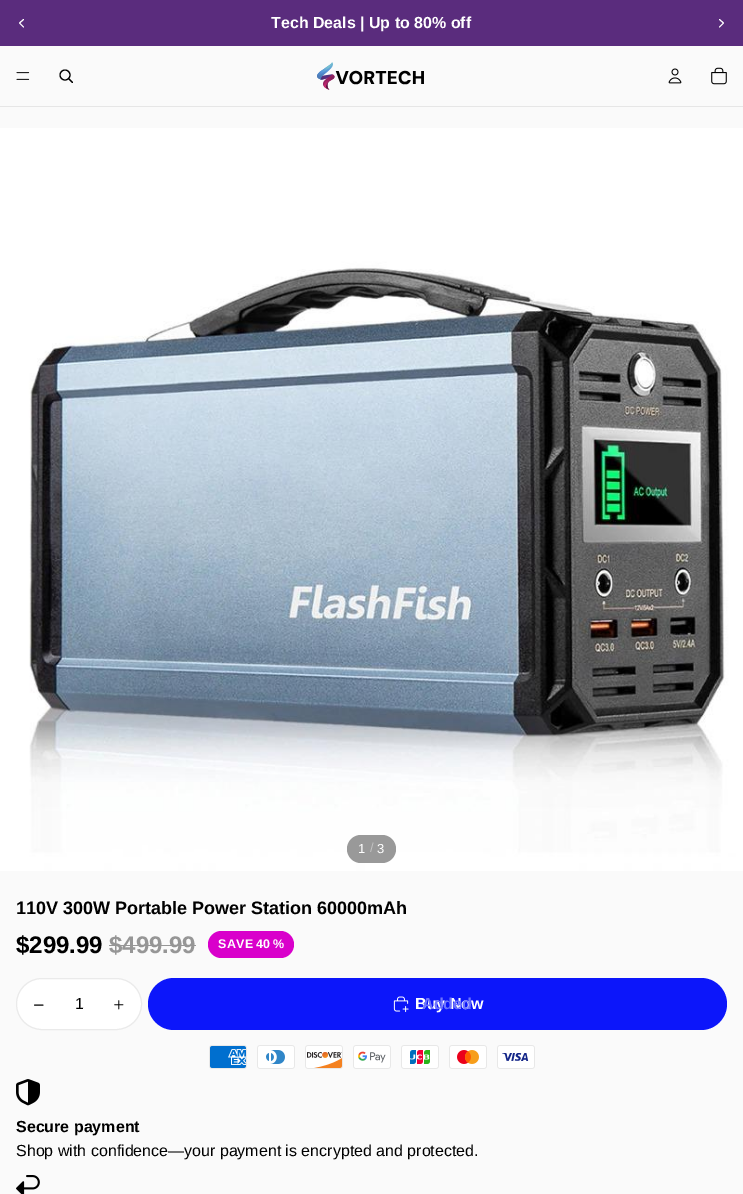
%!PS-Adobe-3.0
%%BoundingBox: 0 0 743 1194
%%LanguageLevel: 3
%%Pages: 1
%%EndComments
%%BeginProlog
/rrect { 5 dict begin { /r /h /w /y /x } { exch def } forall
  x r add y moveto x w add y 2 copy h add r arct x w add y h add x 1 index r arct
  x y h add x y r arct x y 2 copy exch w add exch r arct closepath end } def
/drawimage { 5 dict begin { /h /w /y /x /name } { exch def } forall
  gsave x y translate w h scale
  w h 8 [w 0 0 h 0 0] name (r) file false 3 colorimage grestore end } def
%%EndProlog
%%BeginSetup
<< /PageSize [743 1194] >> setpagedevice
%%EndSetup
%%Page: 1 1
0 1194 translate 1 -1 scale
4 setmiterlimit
0.98 setgray
0 0 743 1194 rectfill
0.353 0.173 0.49 setrgbcolor
0 0 743 46 rectfill
1 setgray
1 setlinecap
1 setlinejoin
newpath 23.5 19.5 moveto 19.5 23 lineto 23.5 27 lineto stroke
newpath 719.5 19.5 moveto 723.5 23 lineto 719.5 27 lineto stroke
0.902 setgray
0 106 743 1 rectfill
(images/1.raw) 16 72 14 8 drawimage
0 setgray
1.1 setlinewidth
0 setlinecap
0 setlinejoin
newpath 65 75 5 0 360 arc closepath stroke
1 setlinecap
1 setlinejoin
newpath 69 79 moveto 72.5 82.5 lineto stroke
(images/2.raw) 317 62 107 28 drawimage
(images/3.raw) 668 68 14 16 drawimage
(images/4.raw) 711 67 16 18 drawimage
(images/5.raw) 0 128 743 743 drawimage
0.6 setgray
347 835 49 28 14 rrect fill
0.588 setgray
109 945 87 1 rectfill
0.851 0 0.796 setrgbcolor
208 931 86 27 13.5 rrect fill
1 setgray
16.5 978.5 125 51 25.5 rrect gsave fill grestore
0.918 setgray
1 setlinewidth
0 setlinecap
0 setlinejoin
stroke
0 setgray
1 setlinecap
newpath 34.5 1005 moveto 43 1005 lineto stroke
(images/6.raw) 114 1000 10 10 drawimage
0.047 0.086 0.98 setrgbcolor
148 978 579 52 26 rrect fill
(images/7.raw) 393 996 16 17 drawimage
(images/8.raw) 209 1045 38 24 drawimage
(images/9.raw) 257 1045 38 24 drawimage
(images/10.raw) 305 1045 38 24 drawimage
(images/11.raw) 353 1045 38 24 drawimage
(images/12.raw) 401 1045 38 24 drawimage
(images/13.raw) 449 1045 38 24 drawimage
(images/14.raw) 497 1045 38 24 drawimage
(images/15.raw) 16 1079 24 27 drawimage
(images/16.raw) 16 1175 24 19 drawimage
/LiberationSans-Bold [16 0 0 -16 0 0] selectfont
1 setgray
271 28 moveto (Tech Deals | Up to 80% off) show
/LiberationSans-Regular [13 0 0 -13 0 0] selectfont
358 853 moveto (1) show
0.761 setgray
370 852 moveto (/) show
1 setgray
377 853 moveto (3) show
/LiberationSans-Bold [18 0 0 -18 0 0] selectfont
0 setgray
16 914 moveto (110V 300W Portable Power Station 60000mAh) show
/LiberationSans-Bold [24 0 0 -24 0 0] selectfont
16 953 moveto ($299.99) show
0.588 setgray
109 953 moveto ($499.99) show
/LiberationSans-Bold [12.5 0 0 -12.5 0 0] selectfont
1 setgray
218 948 moveto 0.5 0 (SAVE) ashow
256 948 moveto 0.5 0 (40) ashow
273 948 moveto 0.5 0 (%) ashow
/LiberationSans-Regular [16 0 0 -16 0 0] selectfont
0 setgray
75 1009 moveto (1) show
/LiberationSans-Bold [16 0 0 -16 0 0] selectfont
1 setgray
415 1009 moveto (Buy Now) show
0.431 0.455 0.988 setrgbcolor
422 1009 moveto (Added) show
0 setgray
16 1132 moveto (Secure payment) show
/LiberationSans-Regular [16 0 0 -16 0 0] selectfont
16 1156 moveto (Shop with confidence—your payment is encrypted and protected.) show
showpage
%%EOF
